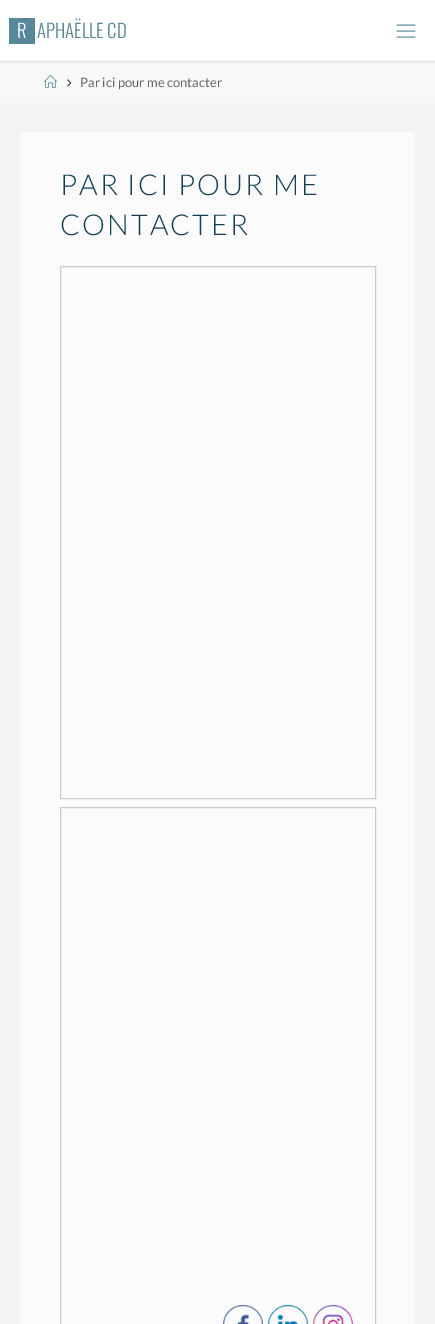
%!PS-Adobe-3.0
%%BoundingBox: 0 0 435 1324
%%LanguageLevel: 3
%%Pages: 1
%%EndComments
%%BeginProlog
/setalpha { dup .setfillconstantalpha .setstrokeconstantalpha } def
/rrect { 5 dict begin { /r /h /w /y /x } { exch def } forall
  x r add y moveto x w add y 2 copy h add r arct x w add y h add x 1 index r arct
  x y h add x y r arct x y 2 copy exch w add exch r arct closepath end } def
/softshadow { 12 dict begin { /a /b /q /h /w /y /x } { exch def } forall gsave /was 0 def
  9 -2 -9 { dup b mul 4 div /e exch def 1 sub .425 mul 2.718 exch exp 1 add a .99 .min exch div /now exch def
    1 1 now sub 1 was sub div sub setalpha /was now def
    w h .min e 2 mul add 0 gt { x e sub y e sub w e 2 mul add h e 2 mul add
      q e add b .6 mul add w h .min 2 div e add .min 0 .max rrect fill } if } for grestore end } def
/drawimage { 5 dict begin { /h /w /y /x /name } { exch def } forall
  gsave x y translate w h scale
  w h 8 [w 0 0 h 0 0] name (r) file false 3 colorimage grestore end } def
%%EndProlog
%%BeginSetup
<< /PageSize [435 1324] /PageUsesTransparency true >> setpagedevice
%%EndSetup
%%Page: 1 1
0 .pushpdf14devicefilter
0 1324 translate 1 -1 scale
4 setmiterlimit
0.953 setgray
0 0 435 1324 rectfill
0.973 setgray
0 61 435 42 rectfill
0 setgray
0 0 435 61 0 1.5 0.2 softshadow
1 setgray
0 0 435 61 rectfill
0.341 0.533 0.6 setrgbcolor
9 18 26 26 rectfill
(images/1.raw) 396 24 20 14 drawimage
(images/2.raw) 44 74 13 14 drawimage
(images/3.raw) 67 79 5 8 drawimage
0.984 setgray
20 132 395 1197 5 rrect fill
0.8 setgray
60.5 266.5 315 532 rectstroke
60.5 807.5 315 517 rectstroke
(images/4.raw) 223 1305 40 19 drawimage
(images/5.raw) 268 1305 40 19 drawimage
(images/6.raw) 313 1305 40 19 drawimage
/Oswald-Light [18.75 0 0 -18.75 0 0] selectfont
1 setgray
17 38 moveto (R) show
0.341 0.533 0.6 setrgbcolor
37 38 moveto (APHAËLLE CD) show
/Lato-Regular [13 0 0 -13 0 0] selectfont
0.4 setgray
80 87 moveto (Par ici pour me contacter) show
/Lato-Light [28.75 0 0 -28.75 0 0] selectfont
0.075 0.247 0.329 setrgbcolor
60 195 moveto 2 0 (PAR ICI POUR ME) ashow
60 235 moveto 2 0 (CONTACTER) ashow
.poppdf14devicefilter showpage
%%EOF
